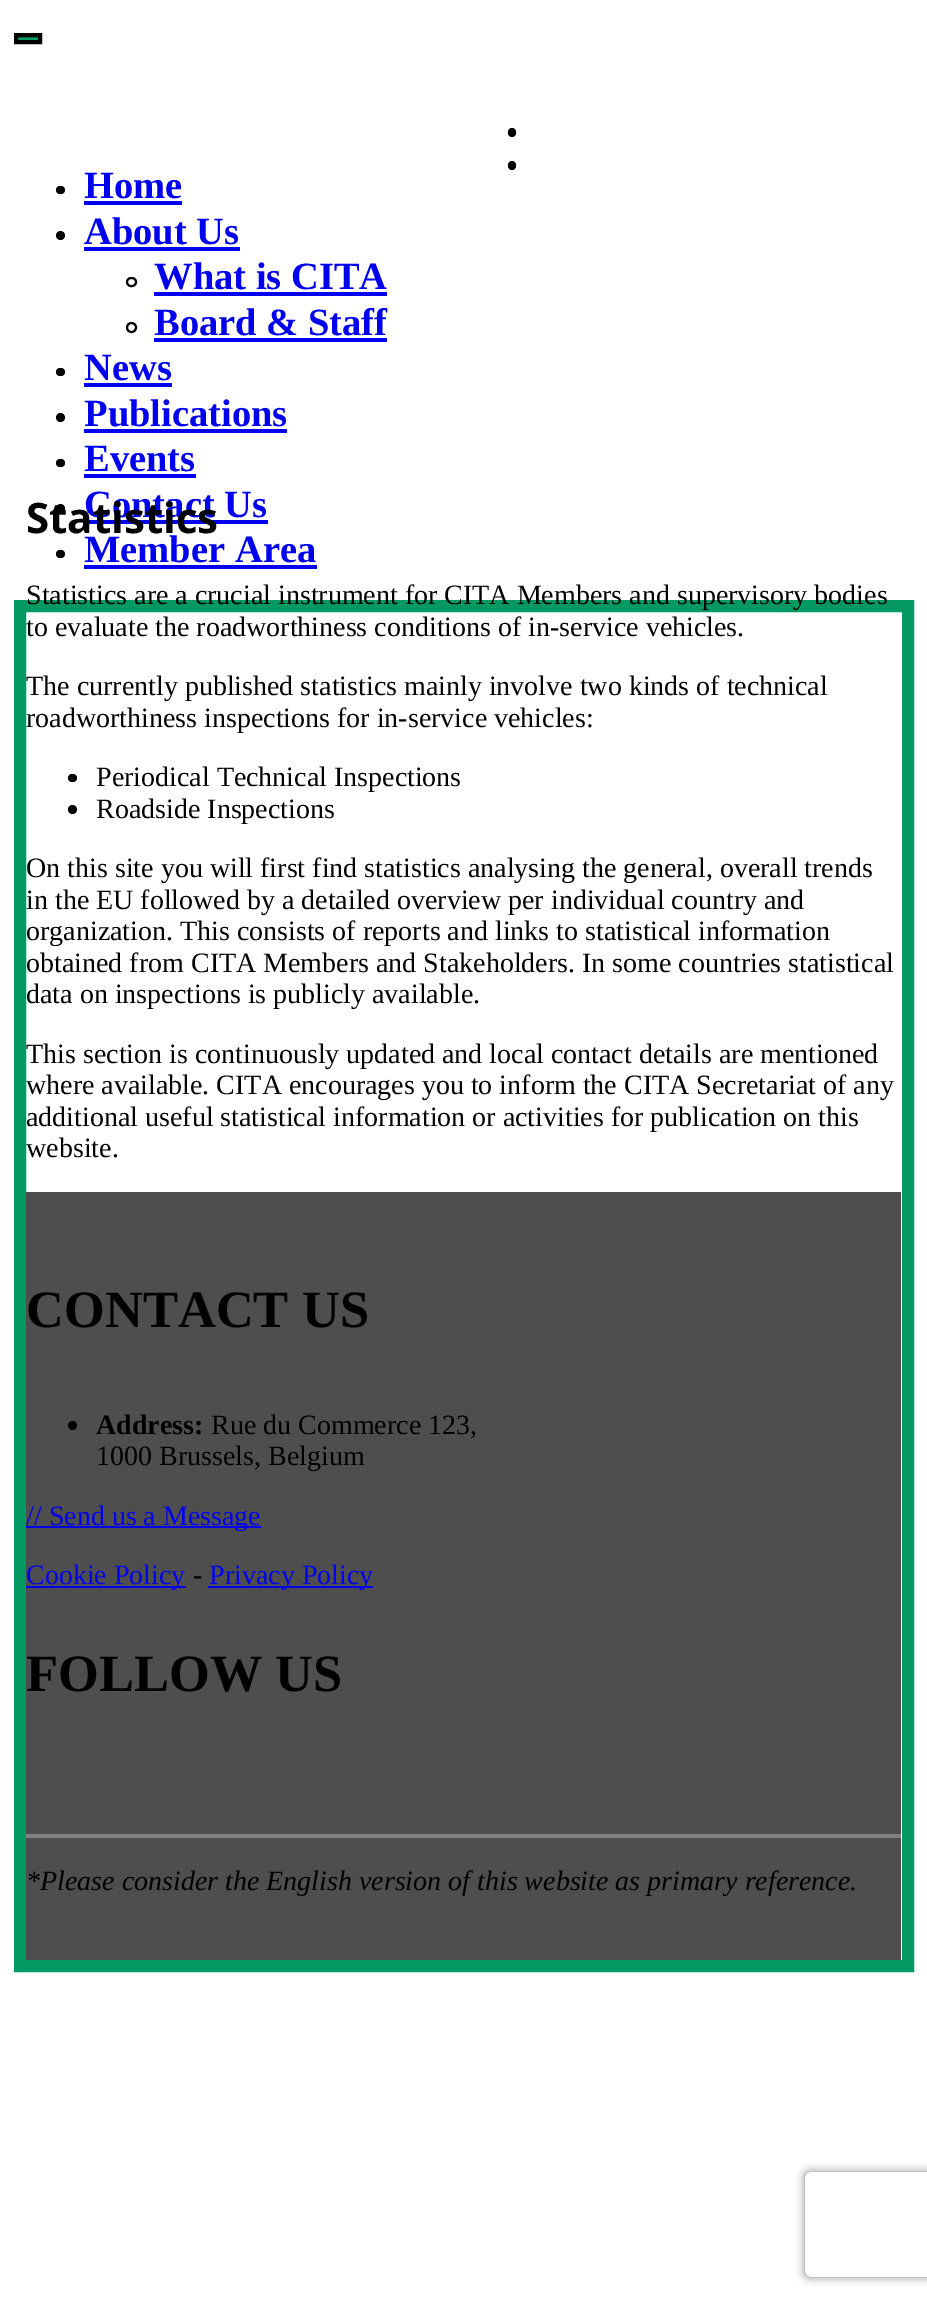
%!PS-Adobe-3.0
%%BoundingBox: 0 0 927 2301
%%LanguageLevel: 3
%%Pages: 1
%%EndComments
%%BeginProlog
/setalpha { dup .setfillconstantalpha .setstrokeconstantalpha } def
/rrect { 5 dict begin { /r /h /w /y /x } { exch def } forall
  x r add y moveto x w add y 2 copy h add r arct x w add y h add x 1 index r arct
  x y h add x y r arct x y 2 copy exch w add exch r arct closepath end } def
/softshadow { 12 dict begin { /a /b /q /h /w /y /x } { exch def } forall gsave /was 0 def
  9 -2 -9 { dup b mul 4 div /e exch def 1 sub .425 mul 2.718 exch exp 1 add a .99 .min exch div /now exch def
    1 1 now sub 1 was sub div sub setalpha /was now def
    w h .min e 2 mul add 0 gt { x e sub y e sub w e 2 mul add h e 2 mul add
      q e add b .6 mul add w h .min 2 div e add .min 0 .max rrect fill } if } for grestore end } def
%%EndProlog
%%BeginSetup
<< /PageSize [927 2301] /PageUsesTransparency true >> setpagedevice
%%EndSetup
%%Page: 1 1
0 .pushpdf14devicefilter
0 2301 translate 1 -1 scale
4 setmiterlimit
1 setgray
0 0 927 2301 rectfill
0.016 0.596 0.384 setrgbcolor
newpath 16 35 moveto 40 35 lineto 40 42 lineto 16 42 lineto closepath gsave fill grestore
0 setgray
4 setlinewidth
stroke
56 186 9 8 4 rrect fill
0 0 0.933 setrgbcolor
84 201 98 4 rectfill
0 setgray
newpath 60.5 235.5 4.5 0 360 arc closepath fill
0 0 0.933 setrgbcolor
84 247 156 4 rectfill
0 setgray
2 setlinewidth
127 278 9 8 4 rrect stroke
0 0 0.933 setrgbcolor
154 292 233 4 rectfill
0 setgray
newpath 131.5 327.5 4.5 0 360 arc closepath stroke
0 0 0.933 setrgbcolor
154 338 233 4 rectfill
0 setgray
56 368 9 8 4 rrect fill
0 0 0.933 setrgbcolor
84 383 88 4 rectfill
0 setgray
newpath 60.5 417.5 4.5 0 360 arc closepath fill
0 0 0.933 setrgbcolor
84 429 203 4 rectfill
0 setgray
56 459 9 8 4 rrect fill
0 0 0.933 setrgbcolor
84 474 112 4 rectfill
0 setgray
newpath 60.5 508.5 4.5 0 360 arc closepath fill
0 0 0.933 setrgbcolor
84 520 184 4 rectfill
0 setgray
56 550 9 8 4 rrect fill
0 0 0.933 setrgbcolor
84 565 233 4 rectfill
0.016 0.596 0.384 setrgbcolor
12 setlinewidth
20 606 888 1360 rectstroke
0 setgray
508 128 8 9 4 rrect fill
508 161 8 9 4 rrect fill
68 774 9 8 4 rrect fill
newpath 72.5 809.5 4.5 0 360 arc closepath fill
0.306 setgray
26 1192 875 768 rectfill
0 setgray
newpath 72.5 1425.5 4.5 0 360 arc closepath fill
0 0 0.933 setrgbcolor
26 1526 235 2 rectfill
26 1586 160 2 rectfill
208 1586 165 2 rectfill
0.502 setgray
26 1834 875 4 rectfill
gsave
newpath 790 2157 moveto 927 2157 lineto 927 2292 lineto 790 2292 lineto closepath 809 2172 moveto 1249 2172 lineto 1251 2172 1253 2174 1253 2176 curveto 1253 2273 lineto 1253 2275 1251 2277 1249 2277 curveto 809 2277 lineto 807 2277 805 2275 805 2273 curveto 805 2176 lineto 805 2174 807 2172 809 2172 curveto closepath eoclip newpath
805 2172 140 105 4 4.5 1 softshadow
grestore
/LiberationSerif-Bold [38.5 0 0 -38.5 0 0] selectfont
0 0 0.933 setrgbcolor
84 198 moveto (Home) show
84 244 moveto (About Us) show
154 289 moveto (What is CITA) show
154 335 moveto (Board & Staff) show
84 380 moveto (News) show
84 426 moveto (Publications) show
84 471 moveto (Events) show
84 517 moveto (Contact Us) show
84 562 moveto (Member Area) show
/OpenSans-Bold [42 0 0 -42 0 0] selectfont
0 setgray
26 533 moveto (Statistics) show
/LiberationSerif-Regular [28 0 0 -28 0 0] selectfont
26 604 moveto (Statistics are a crucial instrument for CITA Members and supervisory bodies) show
26 636 moveto (to evaluate the roadworthiness conditions of in-service vehicles.) show
26 695 moveto (The currently published statistics mainly involve two kinds of technical) show
26 727 moveto (roadworthiness inspections for in-service vehicles:) show
96 786 moveto (Periodical Technical Inspections) show
96 818 moveto (Roadside Inspections) show
26 877 moveto (On this site you will first find statistics analysing the general, overall trends) show
26 909 moveto (in the EU followed by a detailed overview per individual country and) show
26 940 moveto (organization. This consists of reports and links to statistical information) show
26 972 moveto (obtained from CITA Members and Stakeholders. In some countries statistical) show
26 1003 moveto (data on inspections is publicly available.) show
26 1063 moveto (This section is continuously updated and local contact details are mentioned) show
26 1094 moveto (where available. CITA encourages you to inform the CITA Secretariat of any) show
26 1126 moveto (additional useful statistical information or activities for publication on this) show
26 1157 moveto (website.) show
/LiberationSerif-Bold [52.5 0 0 -52.5 0 0] selectfont
26 1327 moveto (CONTACT US) show
/LiberationSerif-Bold [28 0 0 -28 0 0] selectfont
96 1434 moveto (Address:) show
/LiberationSerif-Regular [28 0 0 -28 0 0] selectfont
211 1434 moveto (Rue du Commerce 123,) show
96 1465 moveto (1000 Brussels, Belgium) show
0 0 0.933 setrgbcolor
26 1525 moveto (// Send us a Message) show
26 1584 moveto (Cookie Policy) show
0 setgray
193 1584 moveto (-) show
0 0 0.933 setrgbcolor
209 1584 moveto (Privacy Policy) show
/LiberationSerif-Bold [52.5 0 0 -52.5 0 0] selectfont
0 setgray
26 1691 moveto (FOLLOW US) show
/LiberationSerif-Italic [28 0 0 -28 0 0] selectfont
26 1890 moveto (*Please consider the English version of this website as primary reference.) show
.poppdf14devicefilter showpage
%%EOF
